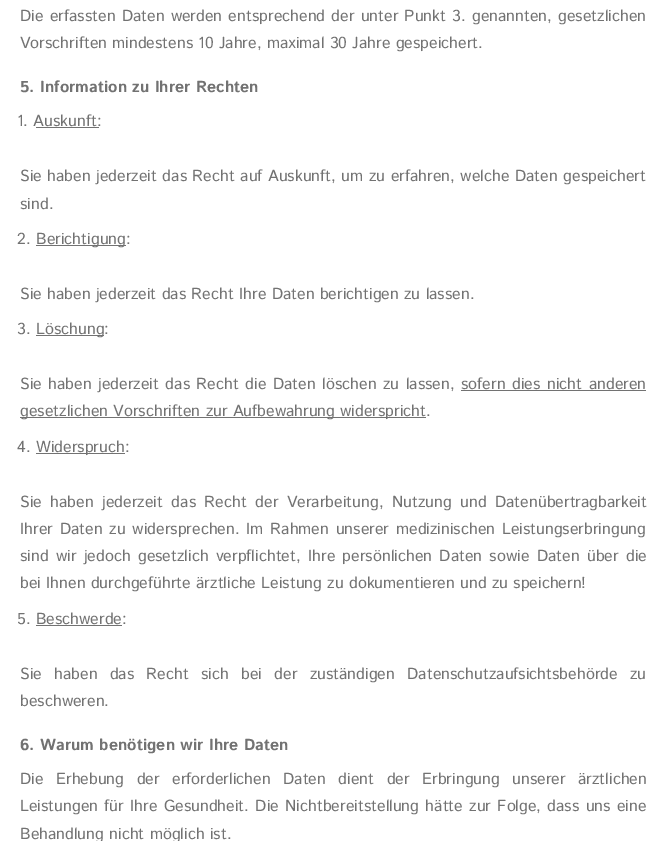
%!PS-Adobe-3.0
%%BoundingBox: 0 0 666 841
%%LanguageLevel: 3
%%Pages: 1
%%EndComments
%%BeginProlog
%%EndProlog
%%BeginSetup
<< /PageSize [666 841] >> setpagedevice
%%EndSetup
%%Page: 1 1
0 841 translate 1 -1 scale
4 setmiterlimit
1 setgray
0 0 666 841 rectfill
0.447 setgray
36 127 63 1 rectfill
36 245 90 1 rectfill
36 335 68 1 rectfill
461 390 185 1 rectfill
20 417 406 1 rectfill
36 453 89 1 rectfill
36 625 86 1 rectfill
/IstokWeb-Regular [16 0 0 -16 0 0] selectfont
20 21 moveto 0.9 0 32 (Die erfassten Daten werden entsprechend der unter Punkt 3. genannten, gesetzlichen) widthshow
20 48 moveto (Vorschriften mindestens 10 Jahre, maximal 30 Jahre gespeichert.) show
/IstokWeb-Bold [16 0 0 -16 0 0] selectfont
20 92 moveto (5. Information zu Ihrer Rechten) show
/IstokWeb-Regular [16 0 0 -16 0 0] selectfont
17 126 moveto (1. Auskunft:) show
20 181 moveto 0.25 0 32 (Sie haben jederzeit das Recht auf Auskunft, um zu erfahren, welche Daten gespeichert) widthshow
20 209 moveto (sind.) show
17 244 moveto (2.) show
36 244 moveto (Berichtigung:) show
20 299 moveto (Sie haben jederzeit das Recht Ihre Daten berichtigen zu lassen.) show
17 334 moveto (3.) show
36 334 moveto (Löschung:) show
20 389 moveto 1.25 0 32 (Sie haben jederzeit das Recht die Daten löschen zu lassen,) widthshow
461 389 moveto 1.25 0 32 (sofern dies nicht anderen) widthshow
20 416 moveto (gesetzlichen Vorschriften zur Aufbewahrung widerspricht.) show
17 452 moveto (4.) show
36 452 moveto (Widerspruch:) show
20 507 moveto 3.25 0 32 (Sie haben jederzeit das Recht der Verarbeitung, Nutzung und Datenübertragbarkeit) widthshow
20 534 moveto 1.5 0 32 (Ihrer Daten zu widersprechen. Im Rahmen unserer medizinischen Leistungserbringung) widthshow
20 561 moveto 2 0 32 (sind wir jedoch gesetzlich verpflichtet, Ihre persönlichen Daten sowie Daten über die) widthshow
20 588 moveto (bei Ihnen durchgeführte ärztliche Leistung zu dokumentieren und zu speichern!) show
17 624 moveto (5. Beschwerde:) show
20 679 moveto 7 0 32 (Sie haben das Recht sich bei der zuständigen Datenschutzaufsichtsbehörde zu) widthshow
20 706 moveto (beschweren.) show
/IstokWeb-Bold [16 0 0 -16 0 0] selectfont
20 750 moveto (6. Warum benötigen wir Ihre Daten) show
/IstokWeb-Regular [16 0 0 -16 0 0] selectfont
20 784 moveto 7.25 0 32 (Die Erhebung der erforderlichen Daten dient der Erbringung unserer ärztlichen) widthshow
20 811 moveto 1 0 32 (Leistungen für Ihre Gesundheit. Die Nichtbereitstellung hätte zur Folge, dass uns eine) widthshow
20 839 moveto (Behandlung nicht möglich ist.) show
showpage
%%EOF
